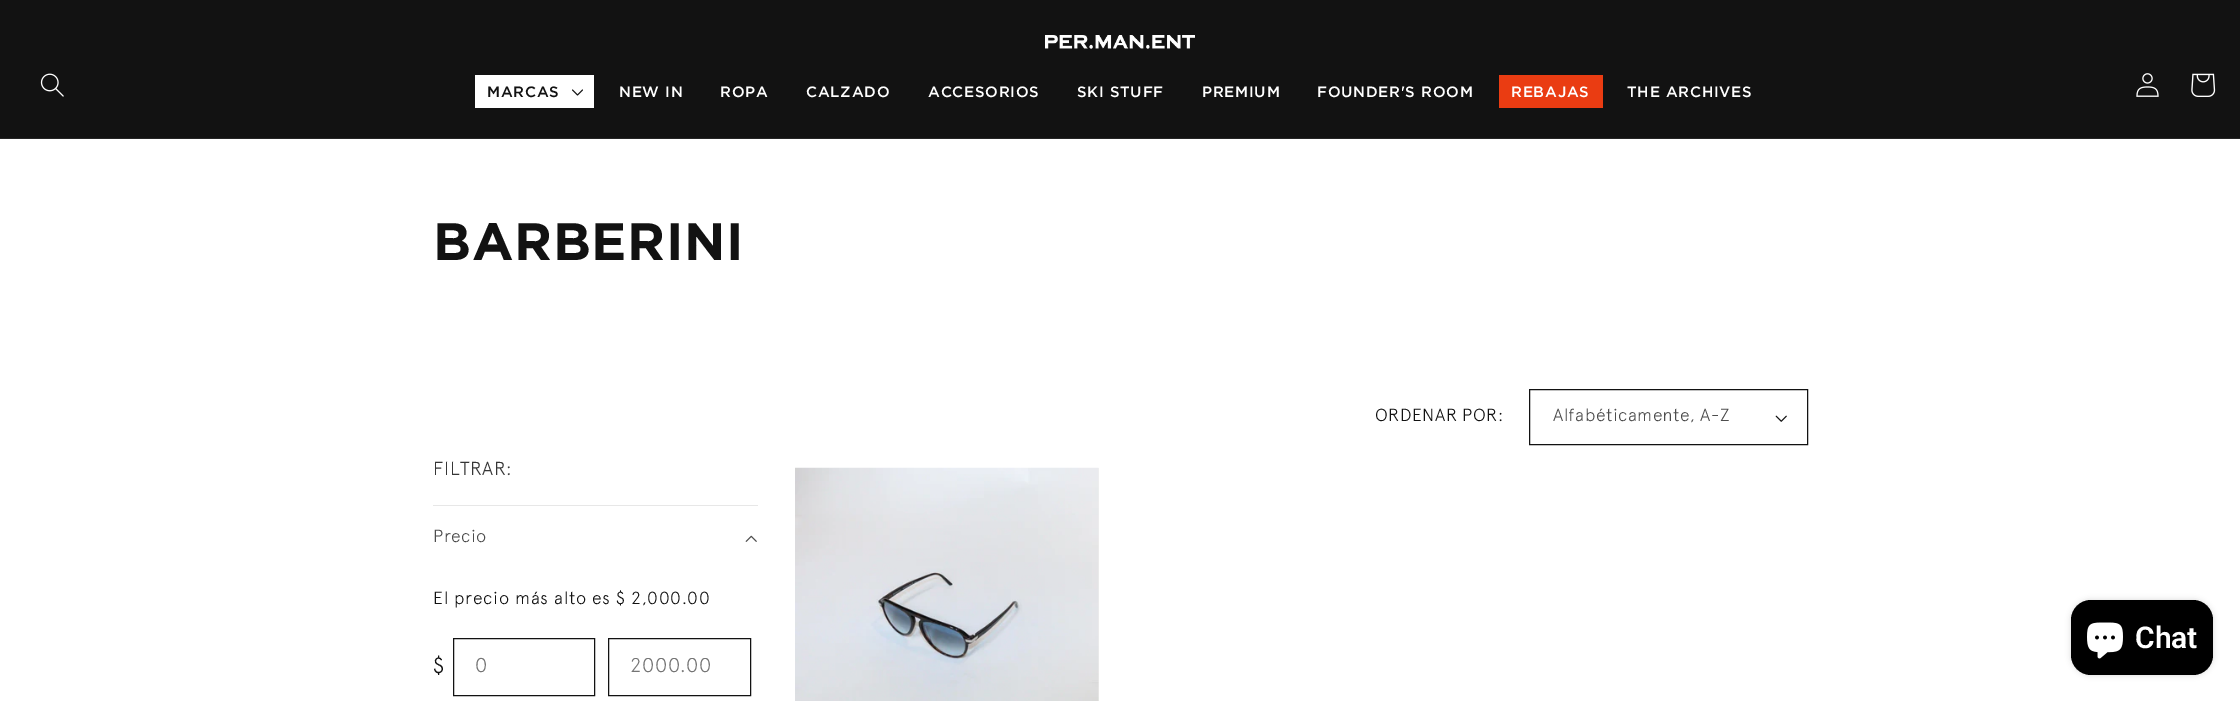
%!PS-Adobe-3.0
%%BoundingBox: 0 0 2240 701
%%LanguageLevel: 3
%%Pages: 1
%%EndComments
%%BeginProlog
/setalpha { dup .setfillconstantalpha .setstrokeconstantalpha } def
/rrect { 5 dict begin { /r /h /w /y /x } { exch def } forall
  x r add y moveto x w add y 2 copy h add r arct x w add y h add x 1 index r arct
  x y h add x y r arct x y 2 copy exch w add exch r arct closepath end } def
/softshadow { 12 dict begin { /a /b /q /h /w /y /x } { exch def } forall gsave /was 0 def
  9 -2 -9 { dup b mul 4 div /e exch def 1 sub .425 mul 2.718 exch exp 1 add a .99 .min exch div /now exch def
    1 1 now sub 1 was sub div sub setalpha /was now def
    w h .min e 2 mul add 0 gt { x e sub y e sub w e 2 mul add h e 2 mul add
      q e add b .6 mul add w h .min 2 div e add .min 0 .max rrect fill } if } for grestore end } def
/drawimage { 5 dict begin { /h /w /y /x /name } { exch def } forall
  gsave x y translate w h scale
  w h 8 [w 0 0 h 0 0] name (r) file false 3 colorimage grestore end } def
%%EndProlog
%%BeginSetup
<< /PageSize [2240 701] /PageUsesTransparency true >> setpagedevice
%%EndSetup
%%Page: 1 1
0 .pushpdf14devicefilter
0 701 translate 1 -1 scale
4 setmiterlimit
1 setgray
0 0 2240 701 rectfill
0.071 setgray
0 0 2240 138 rectfill
0.145 setgray
0 138 2240 1 rectfill
(images/1.raw) 1045 35 150 14 drawimage
(images/2.raw) 40 73 24 24 drawimage
1 setgray
475 75 119 33 rectfill
(images/3.raw) 572 89 11 7 drawimage
0.918 0.235 0.071 setrgbcolor
1499 75 104 33 rectfill
(images/4.raw) 2136 73 23 24 drawimage
(images/5.raw) 2191 73 25 24 drawimage
(images/6.raw) 1775 415 12 7 drawimage
0.071 setgray
1529.5 389.5 278 55 rectstroke
0.906 setgray
433 505 325 1 rectfill
(images/7.raw) 745 535 12 7 drawimage
0.071 setgray
453.5 638.5 141 57 rectstroke
608.5 638.5 142 57 rectstroke
0.957 0.945 0.937 setrgbcolor
1098 468 1 233 rectfill
(images/8.raw) 795 467 304 234 drawimage
0 setgray
2071 600 142 75 20 3 0.15 softshadow
2071 600 142 75 20 rrect fill
(images/9.raw) 2087 622 36 37 drawimage
/Gotham-Medium [15 0 0 -15 0 0] selectfont
0.071 setgray
487 97 moveto 0.75 0 (MARCAS) ashow
1 setgray
619 97 moveto 0.75 0 (NEW IN) ashow
720 97 moveto 0.75 0 (ROPA) ashow
806 97 moveto 0.75 0 (CALZADO) ashow
928 97 moveto 0.75 0 (ACCESORIOS) ashow
1077 97 moveto 0.75 0 (SKI STUFF) ashow
1202 97 moveto 0.75 0 (PREMIUM) ashow
1317 97 moveto 0.75 0 (FOUNDER'S ROOM) ashow
1511 97 moveto 0.75 0 (REBAJAS) ashow
1627 97 moveto 0.75 0 (THE ARCHIVES) ashow
/Gotham-Bold [52.5 0 0 -52.5 0 0] selectfont
0.071 setgray
433 260 moveto 0.75 0 (BARBERINI) ashow
/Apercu-Light [17.5 0 0 -17.5 0 0] selectfont
1375 421 moveto 0.5 0 (ORDENAR POR:) ashow
0.302 setgray
1553 421 moveto 0.5 0 (Alfabéticamente, A-Z) ashow
/Apercu-Light [18.75 0 0 -18.75 0 0] selectfont
0.212 setgray
433 475 moveto 0.5 0 (FILTRAR:) ashow
/Apercu-Light [17.5 0 0 -17.5 0 0] selectfont
0.302 setgray
433 542 moveto 0.5 0 (Precio) ashow
0.071 setgray
433 604 moveto 0.75 0 (El precio más alto es $ 2,000.00) ashow
/Apercu-Light [22 0 0 -22 0 0] selectfont
433 673 moveto 0.75 0 ($) ashow
/Apercu-Light [20 0 0 -20 0 0] selectfont
0.459 setgray
475 672 moveto 0.5 0 (0) ashow
gsave
630 658 80 20 rectclip
630 672 moveto 0.5 0 (2000.00) ashow
grestore
/Roboto-SemiBold [30 0 0 -30 0 0] selectfont
1 setgray
2135 648 moveto (Chat) show
.poppdf14devicefilter showpage
%%EOF
